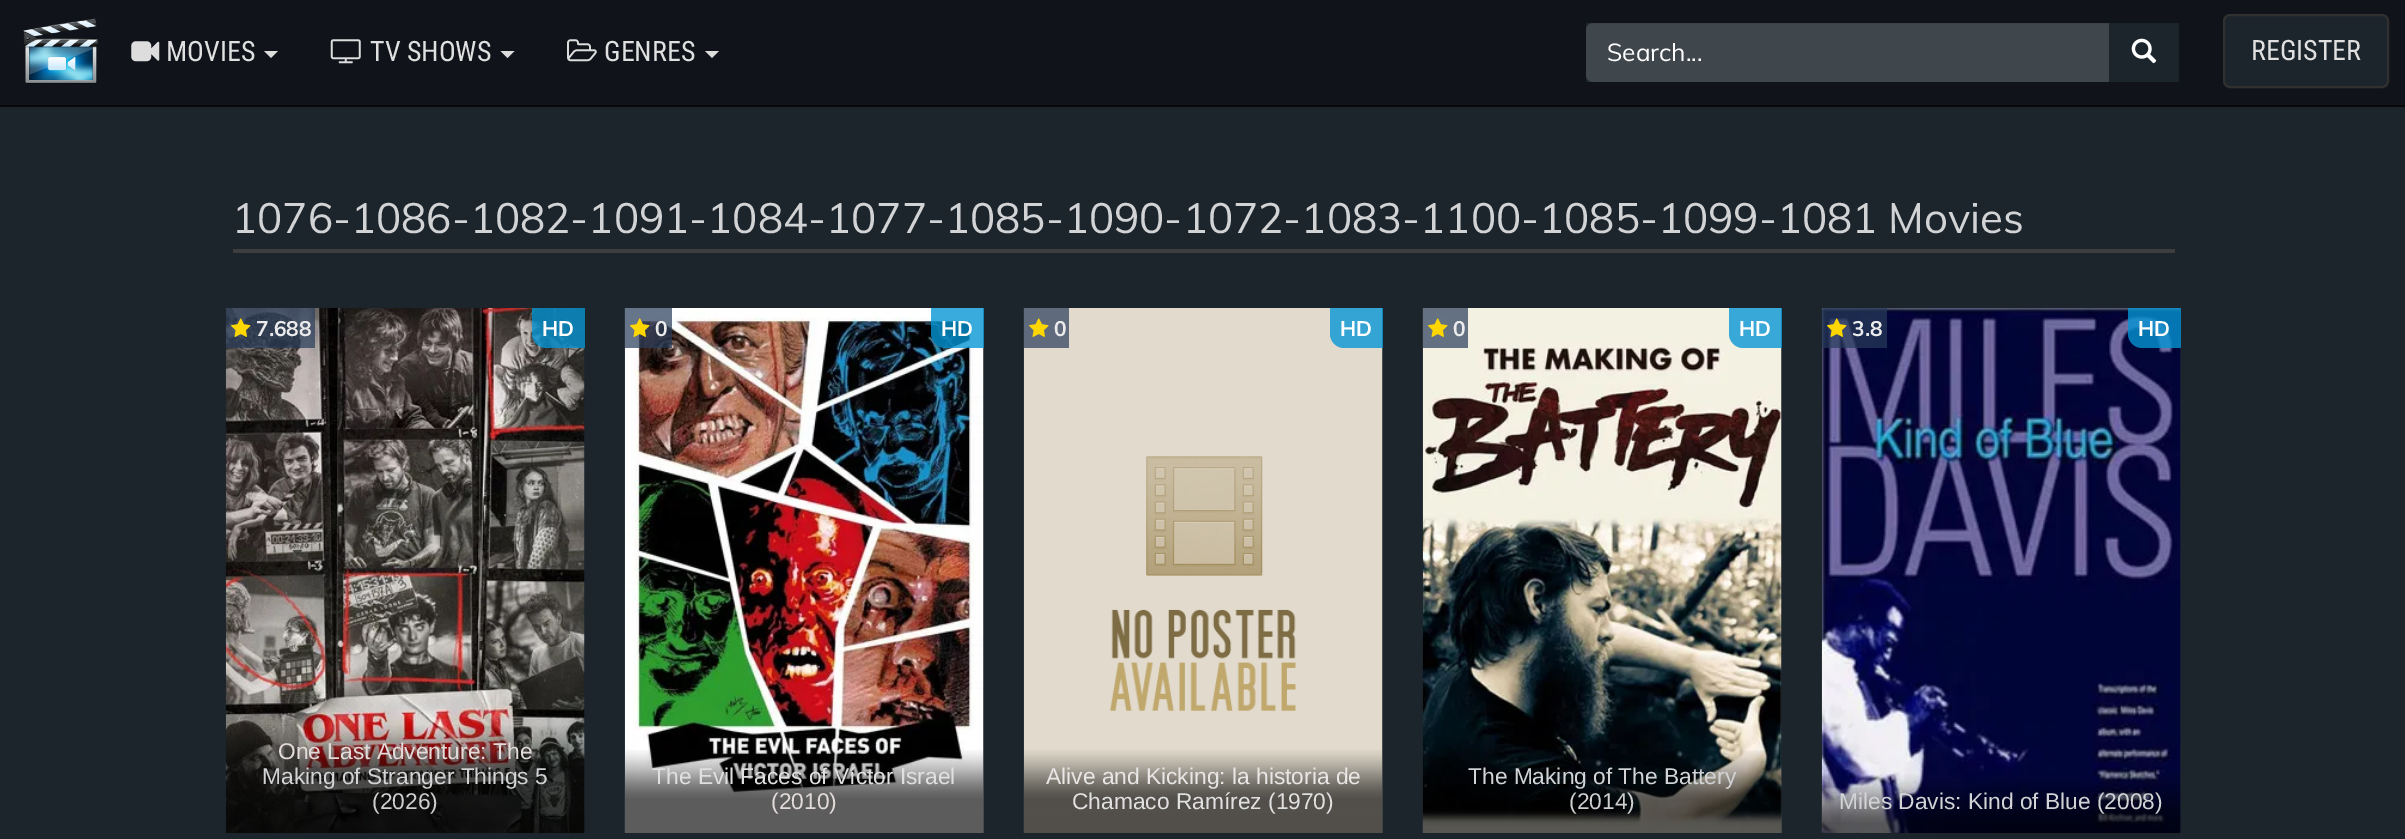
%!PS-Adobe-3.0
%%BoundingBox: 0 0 2405 839
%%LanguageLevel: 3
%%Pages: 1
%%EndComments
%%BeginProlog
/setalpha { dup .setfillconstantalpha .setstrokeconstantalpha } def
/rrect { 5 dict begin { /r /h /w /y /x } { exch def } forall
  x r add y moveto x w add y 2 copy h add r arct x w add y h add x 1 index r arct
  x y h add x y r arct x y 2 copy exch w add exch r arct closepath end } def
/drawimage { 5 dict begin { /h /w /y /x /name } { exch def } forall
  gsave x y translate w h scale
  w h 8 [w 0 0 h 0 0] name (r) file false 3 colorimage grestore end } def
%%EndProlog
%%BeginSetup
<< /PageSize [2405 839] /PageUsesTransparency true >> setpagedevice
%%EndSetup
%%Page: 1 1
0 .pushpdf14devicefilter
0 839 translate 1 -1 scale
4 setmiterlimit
0.11 0.141 0.173 setrgbcolor
0 0 2405 839 rectfill
0.063 0.078 0.102 setrgbcolor
0 0 2405 105 rectfill
0.031 setgray
0 105 2405 2 rectfill
(images/1.raw) 23 18 75 66 drawimage
(images/2.raw) 131 41 29 21 drawimage
0.867 setgray
newpath 264 51 moveto 278 51 lineto 271 58 lineto closepath fill
(images/3.raw) 330 39 31 25 drawimage
newpath 500.5 51 moveto 514.5 51 lineto 507.5 58 lineto closepath fill
(images/4.raw) 567 39 30 23 drawimage
newpath 705 51 moveto 719 51 lineto 712 58 lineto closepath fill
0.11 0.141 0.173 setrgbcolor
1586 23 593 59 rectfill
0.247 0.275 0.298 setrgbcolor
newpath 1593 23 moveto 2111 23 lineto 2111 82 lineto 1593 82 lineto 1589 82 1586 79 1586 75 curveto 1586 30 lineto 1586 26 1589 23 1593 23 curveto closepath fill
0.07 setalpha
0 setgray
newpath 1592 24 moveto 2110 24 lineto 2110 82 lineto 2111 82 lineto 2111 23 lineto 1593 23 lineto 1588 23 1586 28 1586 32 curveto 1586 28 1589 24 1592 24 curveto closepath fill
1 setalpha
0.11 0.141 0.173 setrgbcolor
newpath 2109 23 moveto 2172 23 lineto 2176 23 2179 26 2179 30 curveto 2179 75 lineto 2179 79 2176 82 2172 82 curveto 2109 82 lineto closepath fill
(images/5.raw) 2131 38 26 26 drawimage
2224 15 164 72 6 rrect gsave fill grestore
0.188 setgray
2 setlinewidth
stroke
0.243 setgray
233 249 1942 4 rectfill
(images/6.raw) 225 308 360 525 drawimage
0.7 setalpha
0.153 0.231 0.349 setrgbcolor
226 308 89 40 rectfill
1 setalpha
(images/7.raw) 231 318 20 19 drawimage
0.79 setalpha
0.016 0.584 0.831 setrgbcolor
newpath 532 308 moveto 585 308 lineto 585 348 lineto 546 348 lineto 538.5 348 532 341.5 532 334 curveto closepath fill
1 setalpha
(images/8.raw) 226 725 359 108 drawimage
(images/9.raw) 624 308 360 525 drawimage
0.7 setalpha
0.153 0.231 0.349 setrgbcolor
625 308 47 40 rectfill
1 setalpha
(images/10.raw) 630 318 20 19 drawimage
0.79 setalpha
0.016 0.584 0.831 setrgbcolor
newpath 931 308 moveto 984 308 lineto 984 348 lineto 945 348 lineto 937.5 348 931 341.5 931 334 curveto closepath fill
1 setalpha
(images/11.raw) 625 750 359 83 drawimage
(images/12.raw) 1023 308 360 525 drawimage
0.373 0.42 0.486 setrgbcolor
1024 308 45 40 rectfill
(images/13.raw) 1029 318 20 19 drawimage
0.79 setalpha
0.016 0.584 0.831 setrgbcolor
newpath 1330 308 moveto 1383 308 lineto 1383 348 lineto 1344 348 lineto 1336.5 348 1330 341.5 1330 334 curveto closepath fill
1 setalpha
(images/14.raw) 1024 750 359 83 drawimage
(images/15.raw) 1422 308 360 525 drawimage
0.7 setalpha
0.153 0.231 0.349 setrgbcolor
1423 308 45 40 rectfill
1 setalpha
(images/16.raw) 1428 318 20 19 drawimage
0.79 setalpha
0.016 0.584 0.831 setrgbcolor
newpath 1729 308 moveto 1782 308 lineto 1782 348 lineto 1743 348 lineto 1735.5 348 1729 341.5 1729 334 curveto closepath fill
1 setalpha
(images/17.raw) 1423 750 359 83 drawimage
(images/18.raw) 1821 308 360 525 drawimage
0.7 setalpha
0.153 0.231 0.349 setrgbcolor
1822 308 65 40 rectfill
1 setalpha
(images/19.raw) 1827 318 20 19 drawimage
0.79 setalpha
0.016 0.584 0.831 setrgbcolor
newpath 2128 308 moveto 2181 308 lineto 2181 348 lineto 2142 348 lineto 2134.5 348 2128 341.5 2128 334 curveto closepath fill
1 setalpha
(images/20.raw) 1822 774 359 59 drawimage
/RobotoCondensed-Regular [28 0 0 -28 0 0] selectfont
0.878 setgray
166 61 moveto (MOVIES) show
370 61 moveto (TV SHOWS) show
604 61 moveto (GENRES) show
/Muli-Regular [24.5 0 0 -24.5 0 0] selectfont
1 setgray
1607 61 moveto (Search...) show
/RobotoCondensed-Regular [28 0 0 -28 0 0] selectfont
0.878 setgray
2251 60 moveto (REGISTER) show
/Muli-Regular [42 0 0 -42 0 0] selectfont
0.824 0.827 0.835 setrgbcolor
232 233 moveto (1076-1086-1082-1091-1084-1077-1085-1090-1072-1083-1100-1085-1099-1081 Movies) show
/Muli-Bold [21 0 0 -21 0 0] selectfont
0.922 setgray
256 336 moveto (7.688) show
1 setgray
542 336 moveto (HD) show
/LiberationSans-Regular [22.75 0 0 -22.75 0 0] selectfont
0.89 0.859 0.855 setrgbcolor
278 759 moveto (One Last Adventure: The) show
0.824 0.827 0.835 setrgbcolor
262 784 moveto (Making of Stranger Things 5) show
0.812 setgray
372 809 moveto (\(2026\)) show
/Muli-Bold [21 0 0 -21 0 0] selectfont
0.922 setgray
655 336 moveto (0) show
1 setgray
941 336 moveto (HD) show
/LiberationSans-Regular [22.75 0 0 -22.75 0 0] selectfont
0.878 setgray
652 784 moveto (The Evil Faces of Víctor Israel) show
0.89 0.859 0.855 setrgbcolor
771 809 moveto (\(2010\)) show
/Muli-Bold [21 0 0 -21 0 0] selectfont
0.922 setgray
1054 336 moveto (0) show
1 setgray
1340 336 moveto (HD) show
/LiberationSans-Regular [22.75 0 0 -22.75 0 0] selectfont
0.91 0.906 0.898 setrgbcolor
1046 784 moveto (Alive and Kicking: la historia de) show
0.878 setgray
1072 809 moveto (Chamaco Ramírez \(1970\)) show
/Muli-Bold [21 0 0 -21 0 0] selectfont
0.922 setgray
1453 336 moveto (0) show
1 setgray
1739 336 moveto (HD) show
/LiberationSans-Regular [22.75 0 0 -22.75 0 0] selectfont
0.824 0.827 0.835 setrgbcolor
1468 784 moveto (The Making of The Battery) show
0.812 setgray
1569 809 moveto (\(2014\)) show
/Muli-Bold [21 0 0 -21 0 0] selectfont
0.922 setgray
1852 336 moveto (3.8) show
1 setgray
2138 336 moveto (HD) show
/LiberationSans-Regular [22.75 0 0 -22.75 0 0] selectfont
0.824 0.827 0.835 setrgbcolor
1839 809 moveto (Miles Davis: Kind of Blue \(2008\)) show
.poppdf14devicefilter showpage
%%EOF
